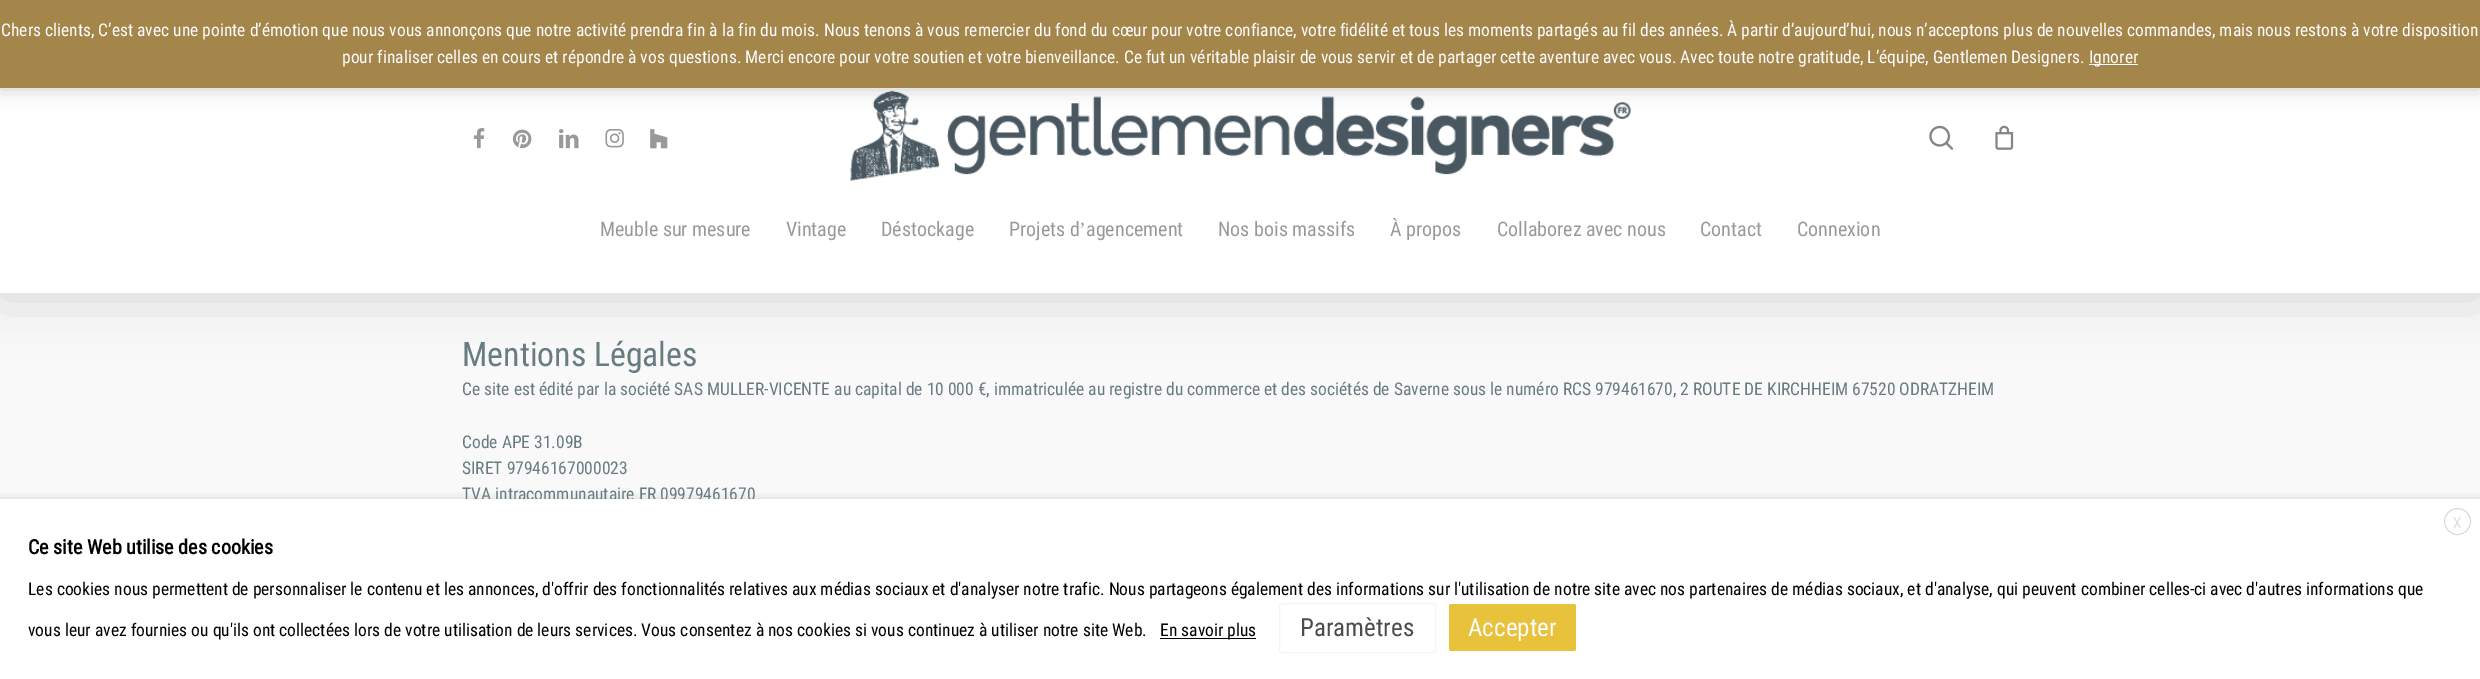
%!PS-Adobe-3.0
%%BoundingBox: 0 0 2480 679
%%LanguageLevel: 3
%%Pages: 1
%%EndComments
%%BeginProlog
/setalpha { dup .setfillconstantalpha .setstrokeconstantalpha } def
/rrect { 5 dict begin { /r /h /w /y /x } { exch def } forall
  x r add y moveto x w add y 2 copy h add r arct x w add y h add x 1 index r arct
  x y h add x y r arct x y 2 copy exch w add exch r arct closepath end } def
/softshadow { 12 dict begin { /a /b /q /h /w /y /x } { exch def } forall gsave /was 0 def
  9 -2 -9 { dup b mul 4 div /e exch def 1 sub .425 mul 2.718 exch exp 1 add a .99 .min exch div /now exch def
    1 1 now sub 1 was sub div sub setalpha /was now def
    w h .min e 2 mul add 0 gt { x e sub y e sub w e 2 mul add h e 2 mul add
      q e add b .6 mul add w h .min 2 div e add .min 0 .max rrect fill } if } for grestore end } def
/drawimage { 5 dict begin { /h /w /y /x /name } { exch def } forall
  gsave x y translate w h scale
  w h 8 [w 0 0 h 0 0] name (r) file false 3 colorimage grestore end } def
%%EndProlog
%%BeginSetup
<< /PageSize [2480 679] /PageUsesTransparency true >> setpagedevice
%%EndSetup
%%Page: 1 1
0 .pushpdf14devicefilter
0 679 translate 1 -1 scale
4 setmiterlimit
0.976 setgray
0 0 2480 679 rectfill
1 setgray
0 88 2480 205 rectfill
gsave
newpath 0 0 moveto 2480 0 lineto 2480 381 lineto 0 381 lineto closepath 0 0 moveto 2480 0 lineto 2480 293 lineto 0 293 lineto closepath eoclip newpath
0 setgray
0 4 2480 292 0 28 0.15 softshadow
grestore
(images/6.raw) 850 90 781 91 drawimage
0 setgray
0 1 2480 88 0 9 0.2 softshadow
0.643 0.522 0.29 setrgbcolor
0 0 2480 88 rectfill
0.988 0.984 0.996 setrgbcolor
2089 64 49 1 rectfill
0.9 setalpha
1 setgray
0 292 2480 1 rectfill
1 setalpha
(images/1.raw) 473 128 12 21 drawimage
(images/2.raw) 512 129 20 20 drawimage
(images/3.raw) 559 129 20 20 drawimage
(images/4.raw) 605 128 19 20 drawimage
(images/5.raw) 650 129 18 20 drawimage
(images/7.raw) 1929 125 25 25 drawimage
(images/8.raw) 1995 125 19 25 drawimage
0 setgray
0 505 2480 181 0 6 0.5 softshadow
/RobotoCondensed-Regular [17.5 0 0 -17.5 0 0] selectfont
0.988 0.984 0.996 setrgbcolor
1 36 moveto (Chers clients, C’est avec une pointe d’émotion que nous vous annonçons que notre activité prendra fin à la fin du mois. Nous tenons à vous remercier du fond du cœur pour votre confiance, votre fidélité et tous les moments partagés au fil des années. À partir d’aujourd’hui, nous n’acceptons plus de nouvelles commandes, mais nous restons à votre disposition) show
342 63 moveto (pour finaliser celles en cours et répondre à vos questions. Merci encore pour votre soutien et votre bienveillance. Ce fut un véritable plaisir de vous servir et de partager cette aventure avec vous. Avec toute notre gratitude, L’équipe, Gentlemen Designers.) show
2089 63 moveto (Ignorer) show
/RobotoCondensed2-Regular [20 0 0 -20 0 0] selectfont
0.6 setgray
600 236 moveto (Meuble sur mesure) show
786 236 moveto (Vintage) show
881 236 moveto (Déstockage) show
1009 236 moveto (Projets d) show
/LiberationSerif-Regular [20 0 0 -20 0 0] selectfont
1079 236 moveto (’) show
/RobotoCondensed2-Regular [20 0 0 -20 0 0] selectfont
1086 236 moveto (agencement) show
1218 236 moveto (Nos bois massifs) show
1390 236 moveto (À propos) show
1497 236 moveto (Collaborez avec nous) show
1700 236 moveto (Contact) show
1797 236 moveto (Connexion) show
/RobotoCondensed-Regular [33.75 0 0 -33.75 0 0] selectfont
0.408 0.486 0.506 setrgbcolor
462 366 moveto (Mentions Légales) show
/RobotoCondensed-Regular [17.5 0 0 -17.5 0 0] selectfont
462 395 moveto (Ce site est édité par la société SAS MULLER-VICENTE au capital de 10 000 €, immatriculée au registre du commerce et des sociétés de Saverne sous le numéro RCS 979461670, 2 ROUTE DE KIRCHHEIM 67520 ODRATZHEIM) show
462 448 moveto (Code APE 31.09B) show
462 474 moveto (SIRET 97946167000023) show
462 500 moveto (TVA intracommunautaire FR 09979461670) show
1 setgray
0 499 2480 180 rectfill
0.867 setgray
newpath 2457.5 521.5 13 0 360 arc closepath stroke
/RobotoCondensed-Regular [15 0 0 -15 0 0] selectfont
2453 528 moveto (X) show
/RobotoCondensed-Bold [20 0 0 -20 0 0] selectfont
0 setgray
28 554 moveto (Ce site Web utilise des cookies) show
/RobotoCondensed-Regular [17.5 0 0 -17.5 0 0] selectfont
28 595 moveto (Les cookies nous permettent de personnaliser le contenu et les annonces, d'offrir des fonctionnalités relatives aux médias sociaux et d'analyser notre trafic. Nous partageons également des informations sur l'utilisation de notre site avec nos partenaires de médias sociaux, et d'analyse, qui peuvent combiner celles-ci avec d'autres informations que) show
28 636 moveto (vous leur avez fournies ou qu'ils ont collectées lors de votre utilisation de leurs services. Vous consentez à nos cookies si vous continuez à utiliser notre site Web.) show
1160 638 96 1 rectfill
1160 636 moveto (En savoir plus) show
0.957 0.957 0.976 setrgbcolor
1279.5 603.5 156 49 2 rrect stroke
/RobotoCondensed-Regular [25 0 0 -25 0 0] selectfont
0.298 setgray
1300 636 moveto (Paramètres) show
0.91 0.761 0.227 setrgbcolor
1449 604 127 47 2.5 rrect fill
0.988 0.984 0.996 setrgbcolor
1468 636 moveto (Accepter) show
.poppdf14devicefilter showpage
%%EOF
